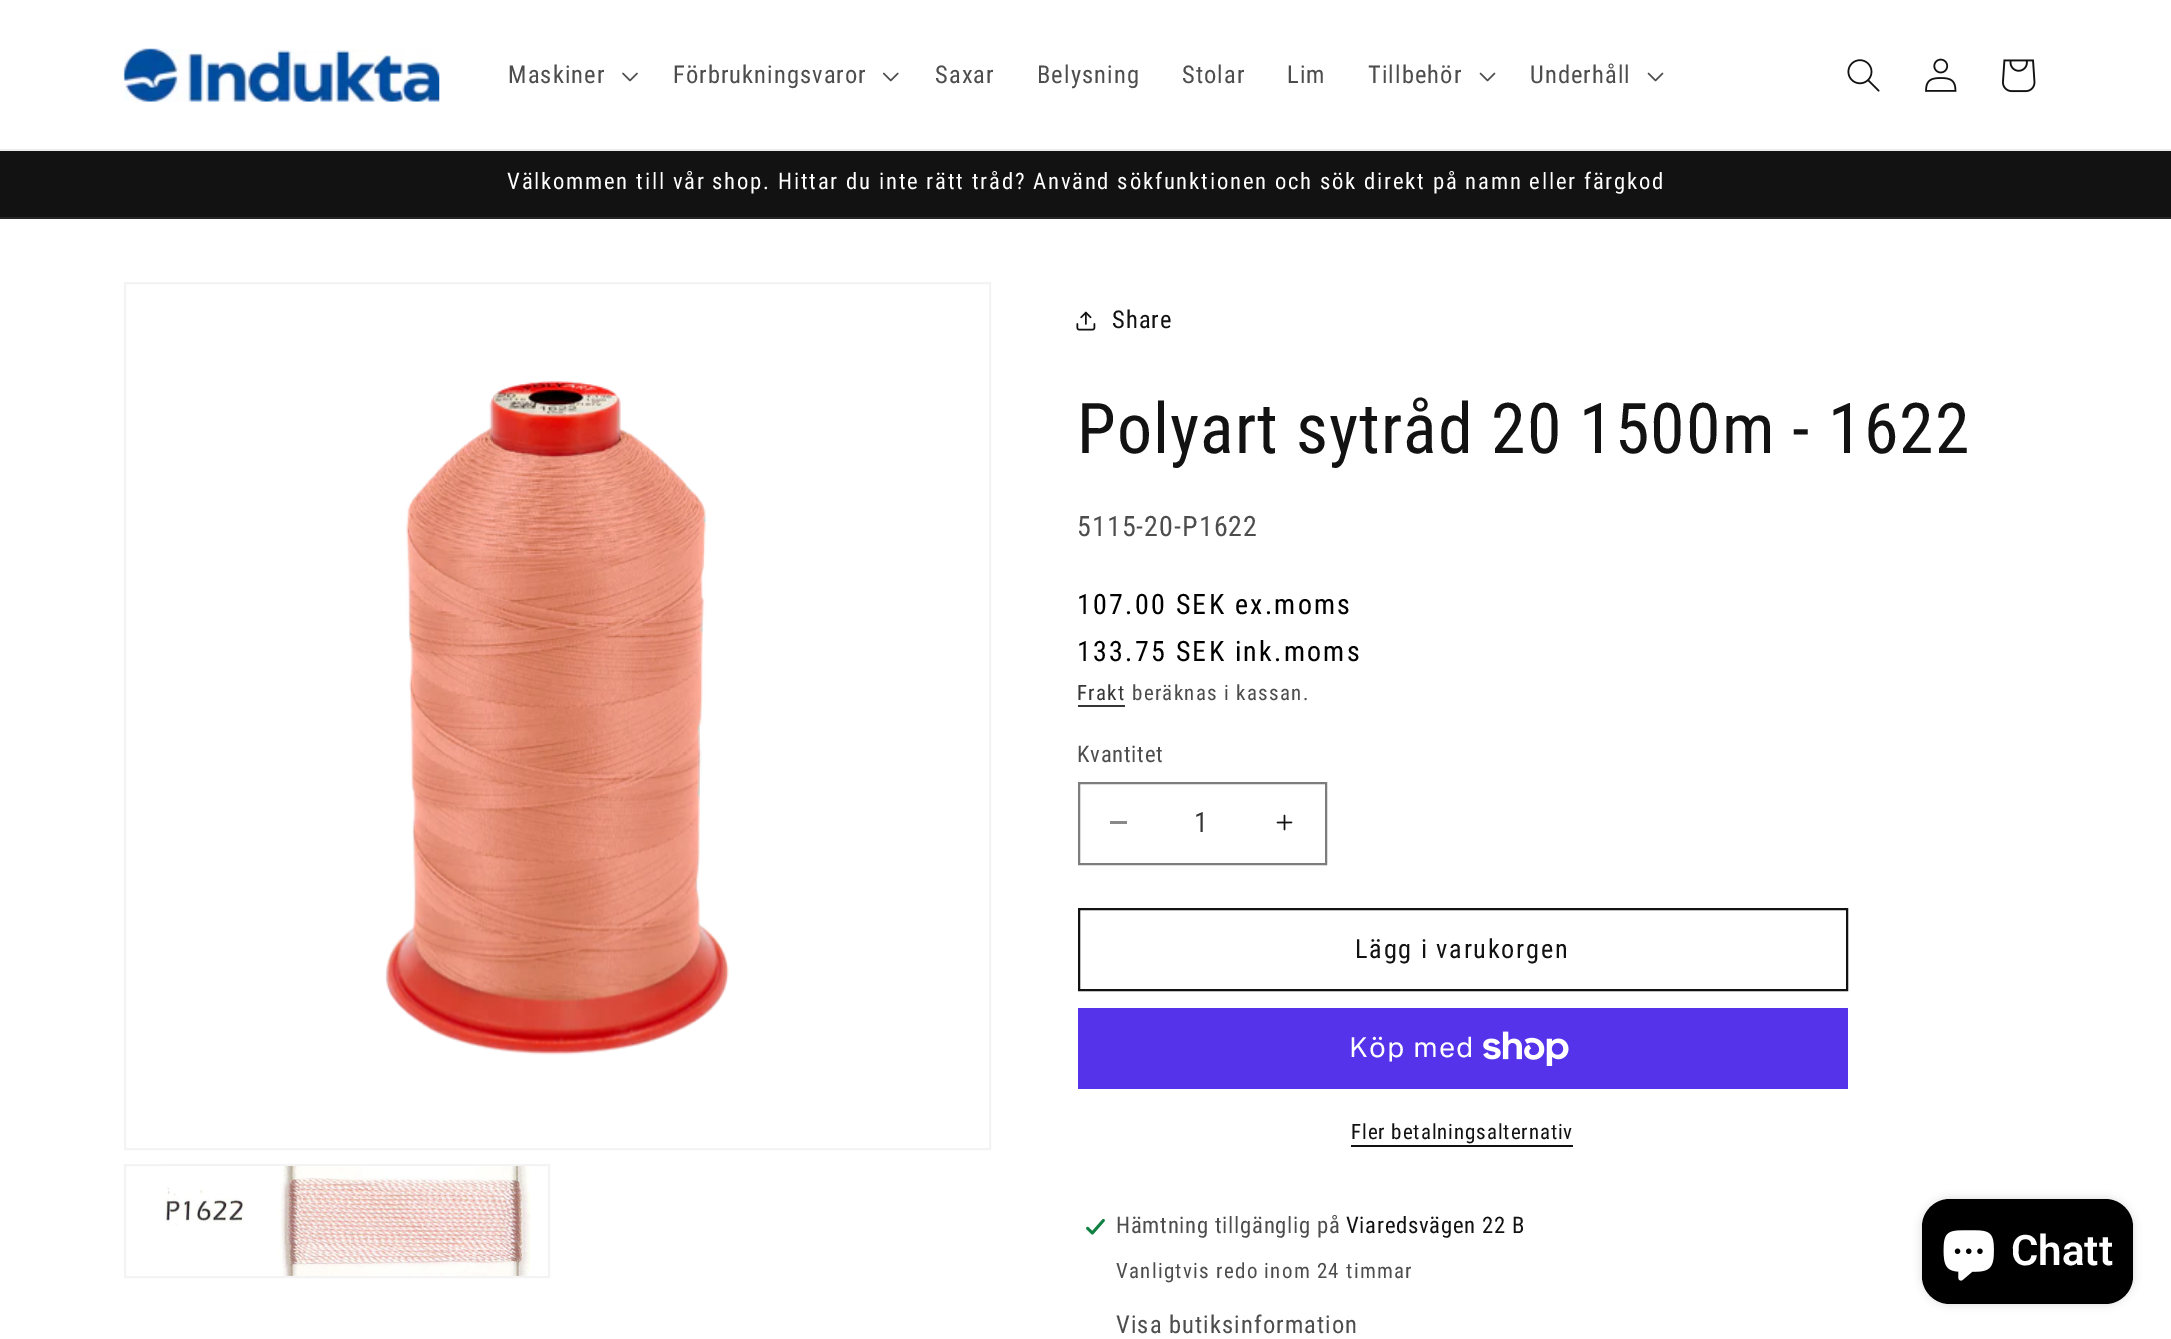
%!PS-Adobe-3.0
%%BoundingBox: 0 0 2171 1339
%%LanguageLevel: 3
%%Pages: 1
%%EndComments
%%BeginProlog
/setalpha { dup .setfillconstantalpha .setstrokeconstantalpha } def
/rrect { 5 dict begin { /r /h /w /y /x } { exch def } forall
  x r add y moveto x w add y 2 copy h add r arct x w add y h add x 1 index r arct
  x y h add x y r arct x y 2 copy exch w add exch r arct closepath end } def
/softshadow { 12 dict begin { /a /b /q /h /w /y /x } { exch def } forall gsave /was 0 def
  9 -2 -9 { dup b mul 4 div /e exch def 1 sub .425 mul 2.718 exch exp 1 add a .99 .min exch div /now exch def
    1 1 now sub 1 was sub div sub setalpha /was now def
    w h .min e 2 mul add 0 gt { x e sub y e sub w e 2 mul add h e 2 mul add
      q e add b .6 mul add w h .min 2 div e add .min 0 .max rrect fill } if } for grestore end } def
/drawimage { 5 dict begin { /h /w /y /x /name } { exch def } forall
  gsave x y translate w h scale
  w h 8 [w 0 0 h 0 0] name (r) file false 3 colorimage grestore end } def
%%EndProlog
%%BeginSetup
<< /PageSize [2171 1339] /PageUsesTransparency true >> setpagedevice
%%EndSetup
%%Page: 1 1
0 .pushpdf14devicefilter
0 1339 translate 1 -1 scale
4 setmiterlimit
1 setgray
0 0 2171 1339 rectfill
0.925 setgray
0 149 2171 2 rectfill
(images/1.raw) 123 48 317 54 drawimage
(images/2.raw) 622 72 16 10 drawimage
(images/3.raw) 882 72 17 10 drawimage
(images/4.raw) 1479 72 17 10 drawimage
(images/4.raw) 1647 72 17 10 drawimage
(images/5.raw) 1847 59 33 33 drawimage
(images/6.raw) 1925 58 32 34 drawimage
(images/7.raw) 2002 59 34 34 drawimage
0.071 setgray
0 151 2171 66 rectfill
0.145 setgray
0 217 2171 2 rectfill
0.953 setgray
2 setlinewidth
125 283 865 866 rectstroke
(images/8.raw) 385 381 344 674 drawimage
125 1165 424 112 rectstroke
(images/9.raw) 164 1166 367 110 drawimage
(images/10.raw) 1076 311 20 20 drawimage
0.212 setgray
1078 705 47 2 rectfill
0.537 setgray
1110 821 17 3 rectfill
(images/11.raw) 1276 814 17 17 drawimage
0.49 setgray
1079 783 247 81 rectstroke
0.071 setgray
1079 909 768 81 rectstroke
0.329 0.2 0.922 setrgbcolor
1078 1008 770 81 rectfill
(images/12.raw) 1483 1031 86 35 drawimage
0.071 setgray
1351 1145 222 2 rectfill
(images/13.raw) 1086 1218 19 17 drawimage
0 setgray
1922 1199 211 105 28 4.5 0.15 softshadow
1922 1199 211 105 28 rrect fill
(images/14.raw) 1943 1230 51 51 drawimage
/RobotoCondensed-Regular [24.5 0 0 -24.5 0 0] selectfont
0.302 setgray
508 83 moveto 1.05 0 (Maskiner) ashow
673 83 moveto 1.05 0 (Förbrukningsvaror) ashow
935 83 moveto 1.05 0 (Saxar) ashow
1037 83 moveto 1.05 0 (Belysning) ashow
1182 83 moveto 1.05 0 (Stolar) ashow
1287 83 moveto 1.05 0 (Lim) ashow
1368 83 moveto 1.05 0 (Tillbehör) ashow
1530 83 moveto 1.05 0 (Underhåll) ashow
/RobotoCondensed-Regular [22.75 0 0 -22.75 0 0] selectfont
1 setgray
507 189 moveto 1.75 0 (Välkommen till vår shop. Hittar du inte rätt tråd? Använd sökfunktionen och sök direkt på namn eller färgkod) ashow
/RobotoCondensed-Regular [24.5 0 0 -24.5 0 0] selectfont
0.071 setgray
1112 328 moveto 1.05 0 (Share) ashow
/RobotoCondensed-Regular [70 0 0 -70 0 0] selectfont
1077 453 moveto 1.05 0 (Polyart sytråd 20 1500m - 1622) ashow
/RobotoCondensed-Regular [28 0 0 -28 0 0] selectfont
0.302 setgray
1077 536 moveto 1.05 0 (5115-20-P1622) ashow
0 setgray
1077 614 moveto 2.25 0 (107.00 SEK ex.moms) ashow
1077 661 moveto 2.25 0 (133.75 SEK ink.moms) ashow
/RobotoCondensed-Regular [21 0 0 -21 0 0] selectfont
0.212 setgray
1077 700 moveto 1.25 0 (Frakt) ashow
0.302 setgray
1132 700 moveto 1.25 0 (beräknas i kassan.) ashow
/RobotoCondensed-Regular [22.75 0 0 -22.75 0 0] selectfont
1077 762 moveto 0.7 0 (Kvantitet) ashow
/RobotoCondensed-Regular [28 0 0 -28 0 0] selectfont
0.212 setgray
1194 832 moveto (1) show
/RobotoCondensed-Regular [26.25 0 0 -26.25 0 0] selectfont
0.071 setgray
1355 958 moveto 1.75 0 (Lägg i varukorgen) ashow
/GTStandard-Regular [28 0 0 -28 0 0] selectfont
1 setgray
1349 1057 moveto 1.05 0 (Köp med) ashow
/RobotoCondensed-Regular [21 0 0 -21 0 0] selectfont
0.071 setgray
1351 1139 moveto 0.9 0 (Fler betalningsalternativ) ashow
/RobotoCondensed-Regular [22.75 0 0 -22.75 0 0] selectfont
0.302 setgray
1116 1233 moveto 0.7 0 (Hämtning tillgänglig på) ashow
0.071 setgray
1346 1233 moveto 0.7 0 (Viaredsvägen 22 B) ashow
/RobotoCondensed-Regular [21 0 0 -21 0 0] selectfont
0.302 setgray
1116 1278 moveto 1.25 0 (Vanligtvis redo inom 24 timmar) ashow
/RobotoCondensed-Regular [24.5 0 0 -24.5 0 0] selectfont
1116 1333 moveto 1.05 0 (Visa butiksinformation) ashow
/Roboto-SemiBold [42 0 0 -42 0 0] selectfont
1 setgray
2011 1265 moveto (Chatt) show
.poppdf14devicefilter showpage
%%EOF
